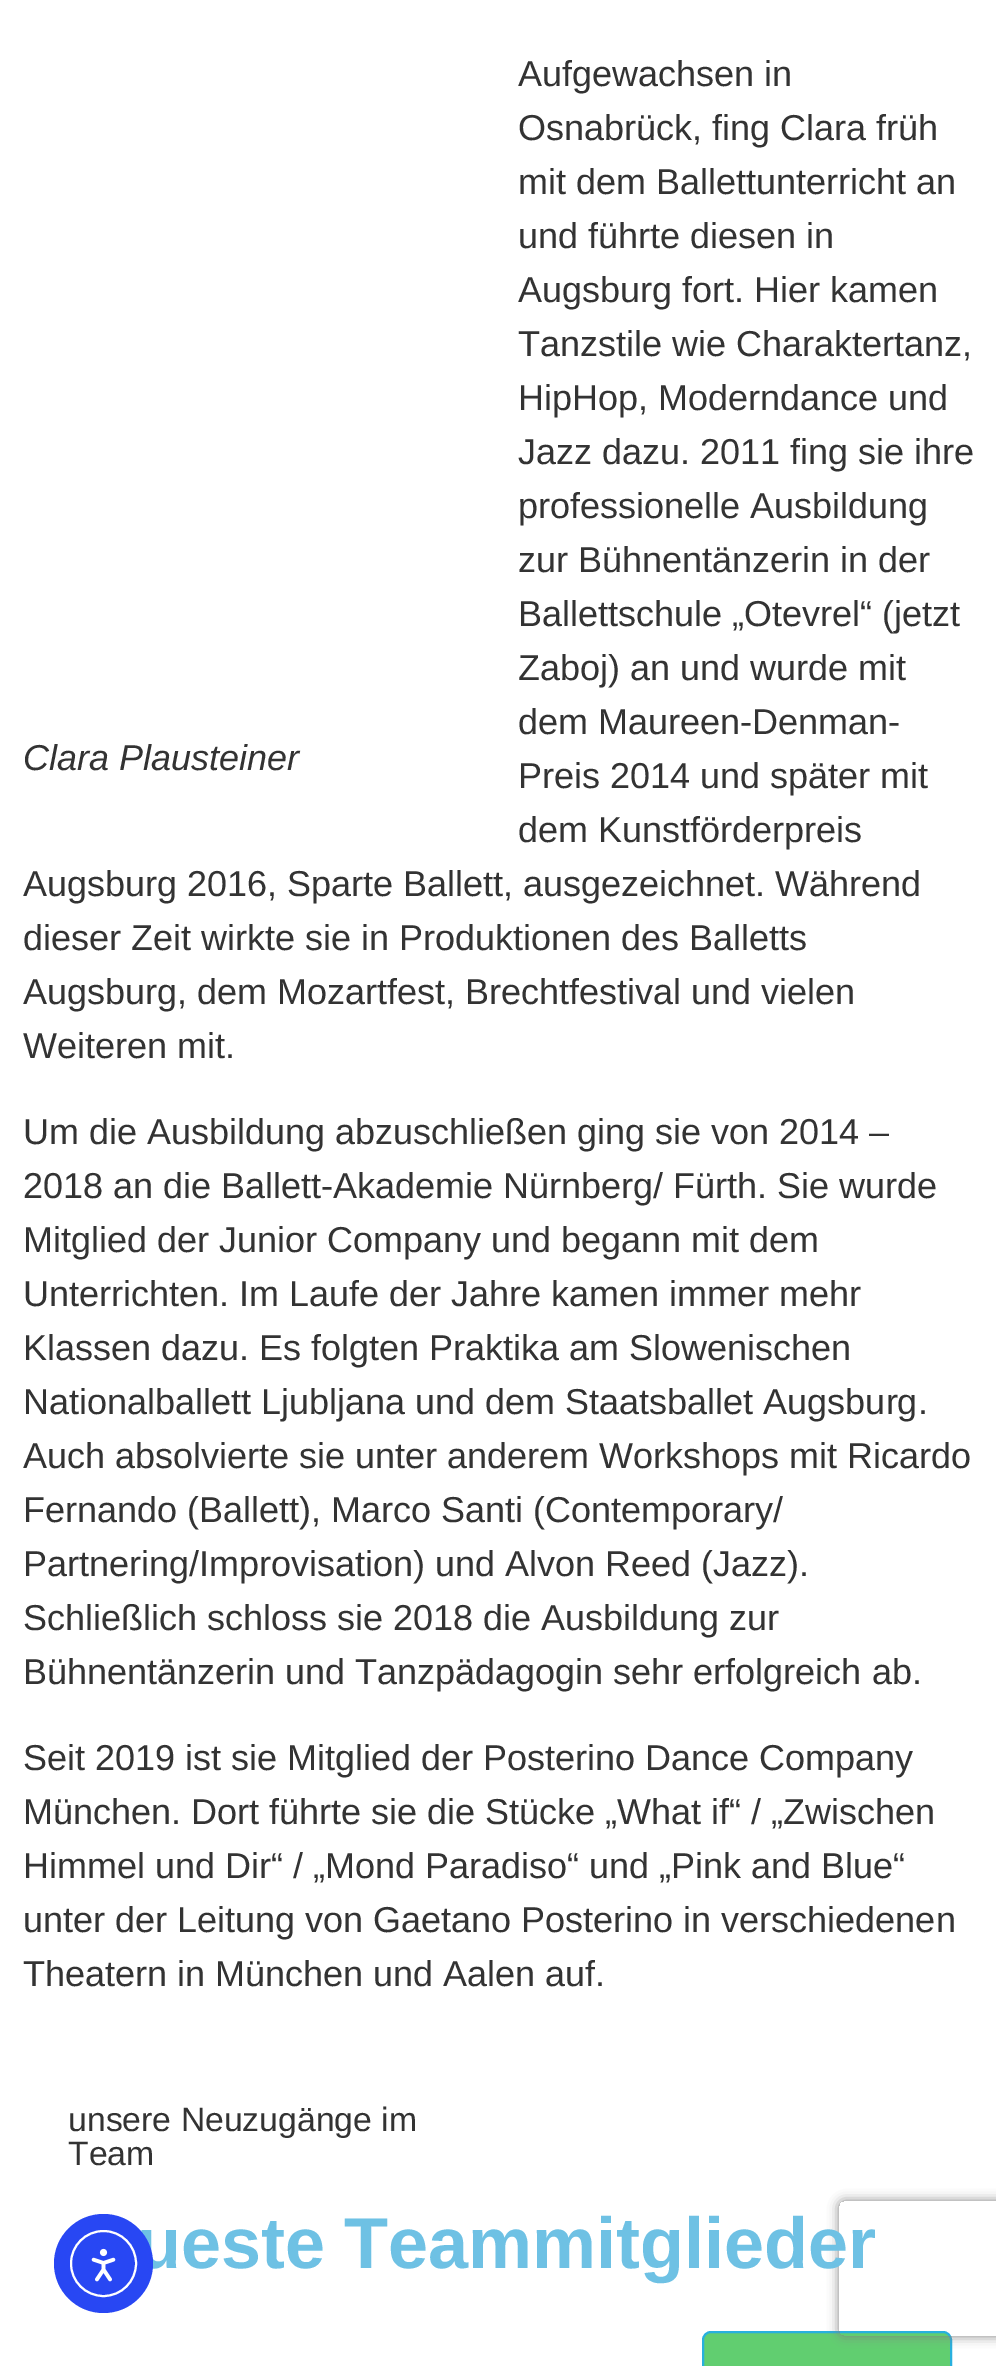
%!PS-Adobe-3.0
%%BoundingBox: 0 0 996 2366
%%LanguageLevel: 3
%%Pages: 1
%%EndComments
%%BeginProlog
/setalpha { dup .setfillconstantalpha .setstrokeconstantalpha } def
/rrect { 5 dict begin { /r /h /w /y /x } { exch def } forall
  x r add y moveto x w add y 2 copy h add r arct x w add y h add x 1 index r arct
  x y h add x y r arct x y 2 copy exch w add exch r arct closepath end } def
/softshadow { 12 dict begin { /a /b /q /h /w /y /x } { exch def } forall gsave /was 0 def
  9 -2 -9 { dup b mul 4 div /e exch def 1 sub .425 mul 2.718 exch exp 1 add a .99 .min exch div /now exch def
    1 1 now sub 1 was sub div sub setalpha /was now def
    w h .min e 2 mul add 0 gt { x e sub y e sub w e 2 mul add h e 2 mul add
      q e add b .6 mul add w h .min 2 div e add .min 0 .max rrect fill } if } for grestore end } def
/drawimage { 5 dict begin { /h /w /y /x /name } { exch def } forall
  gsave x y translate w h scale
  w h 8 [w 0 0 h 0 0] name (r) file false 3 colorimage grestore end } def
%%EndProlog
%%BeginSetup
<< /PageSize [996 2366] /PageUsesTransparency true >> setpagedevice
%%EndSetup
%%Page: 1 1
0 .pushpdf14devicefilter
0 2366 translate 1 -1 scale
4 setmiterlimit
1 setgray
0 0 996 2366 rectfill
0.38 0.808 0.439 setrgbcolor
703 2332 248 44 8 rrect gsave fill grestore
0.157 0.69 0.871 setrgbcolor
2 setlinewidth
stroke
gsave
newpath 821 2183 moveto 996 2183 lineto 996 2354 lineto 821 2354 lineto closepath 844 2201 moveto 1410 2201 lineto 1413 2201 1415 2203 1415 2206 curveto 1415 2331 lineto 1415 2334 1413 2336 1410 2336 curveto 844 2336 lineto 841 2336 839 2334 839 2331 curveto 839 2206 lineto 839 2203 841 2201 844 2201 curveto closepath eoclip newpath
0.502 setgray
839 2201 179 135 5 5.5 1 softshadow
grestore
/LiberationSans-Regular [36 0 0 -36 0 0] selectfont
0.2 setgray
518 86 moveto (Aufgewachsen in) show
518 140 moveto (Osnabrück, fing Clara früh) show
518 194 moveto (mit dem Ballettunterricht an) show
518 248 moveto (und führte diesen in) show
518 302 moveto (Augsburg fort. Hier kamen) show
518 356 moveto (Tanzstile wie Charaktertanz,) show
518 410 moveto (HipHop, Moderndance und) show
518 464 moveto (Jazz dazu. 2011 fing sie ihre) show
518 518 moveto (professionelle Ausbildung) show
518 572 moveto (zur Bühnentänzerin in der) show
518 626 moveto (Ballettschule „Otevrel“ \(jetzt) show
518 680 moveto (Zaboj\) an und wurde mit) show
518 734 moveto (dem Maureen-Denman-) show
518 788 moveto (Preis 2014 und später mit) show
518 842 moveto (dem Kunstförderpreis) show
23 896 moveto (Augsburg 2016, Sparte Ballett, ausgezeichnet. Während) show
23 950 moveto (dieser Zeit wirkte sie in Produktionen des Balletts) show
23 1004 moveto (Augsburg, dem Mozartfest, Brechtfestival und vielen) show
23 1058 moveto (Weiteren mit.) show
/LiberationSans-Italic [36 0 0 -36 0 0] selectfont
23 770 moveto (Clara Plausteiner) show
/LiberationSans-Regular [36 0 0 -36 0 0] selectfont
23 1144 moveto (Um die Ausbildung abzuschließen ging sie von 2014 –) show
23 1198 moveto (2018 an die Ballett-Akademie Nürnberg/ Fürth. Sie wurde) show
23 1252 moveto (Mitglied der Junior Company und begann mit dem) show
23 1306 moveto (Unterrichten. Im Laufe der Jahre kamen immer mehr) show
23 1360 moveto (Klassen dazu. Es folgten Praktika am Slowenischen) show
23 1414 moveto (Nationalballett Ljubljana und dem Staatsballet Augsburg.) show
23 1468 moveto (Auch absolvierte sie unter anderem Workshops mit Ricardo) show
23 1522 moveto (Fernando \(Ballett\), Marco Santi \(Contemporary/) show
23 1576 moveto (Partnering/Improvisation\) und Alvon Reed \(Jazz\).) show
23 1630 moveto (Schließlich schloss sie 2018 die Ausbildung zur) show
23 1684 moveto (Bühnentänzerin und Tanzpädagogin sehr erfolgreich ab.) show
23 1770 moveto (Seit 2019 ist sie Mitglied der Posterino Dance Company) show
23 1824 moveto (München. Dort führte sie die Stücke „What if“ / „Zwischen) show
23 1878 moveto (Himmel und Dir“ / „Mond Paradiso“ und „Pink and Blue“) show
23 1932 moveto (unter der Leitung von Gaetano Posterino in verschiedenen) show
23 1986 moveto (Theatern in München und Aalen auf.) show
/LiberationSans-Regular [33.75 0 0 -33.75 0 0] selectfont
68 2131 moveto (unsere Neuzugänge im) show
68 2165 moveto (Team) show
/LiberationSans-Bold [72 0 0 -72 0 0] selectfont
0.431 0.757 0.894 setrgbcolor
137 2268 moveto -1 0 32 (ueste Teammitglieder) widthshow
0.157 0.278 0.953 setrgbcolor
newpath 103.5 2263.5 49.5 0 360 arc closepath fill
1 setgray
newpath 103.5 2263.5 32.5 0 360 arc closepath stroke
(images/1.raw) 91 2248 25 34 drawimage
.poppdf14devicefilter showpage
%%EOF
